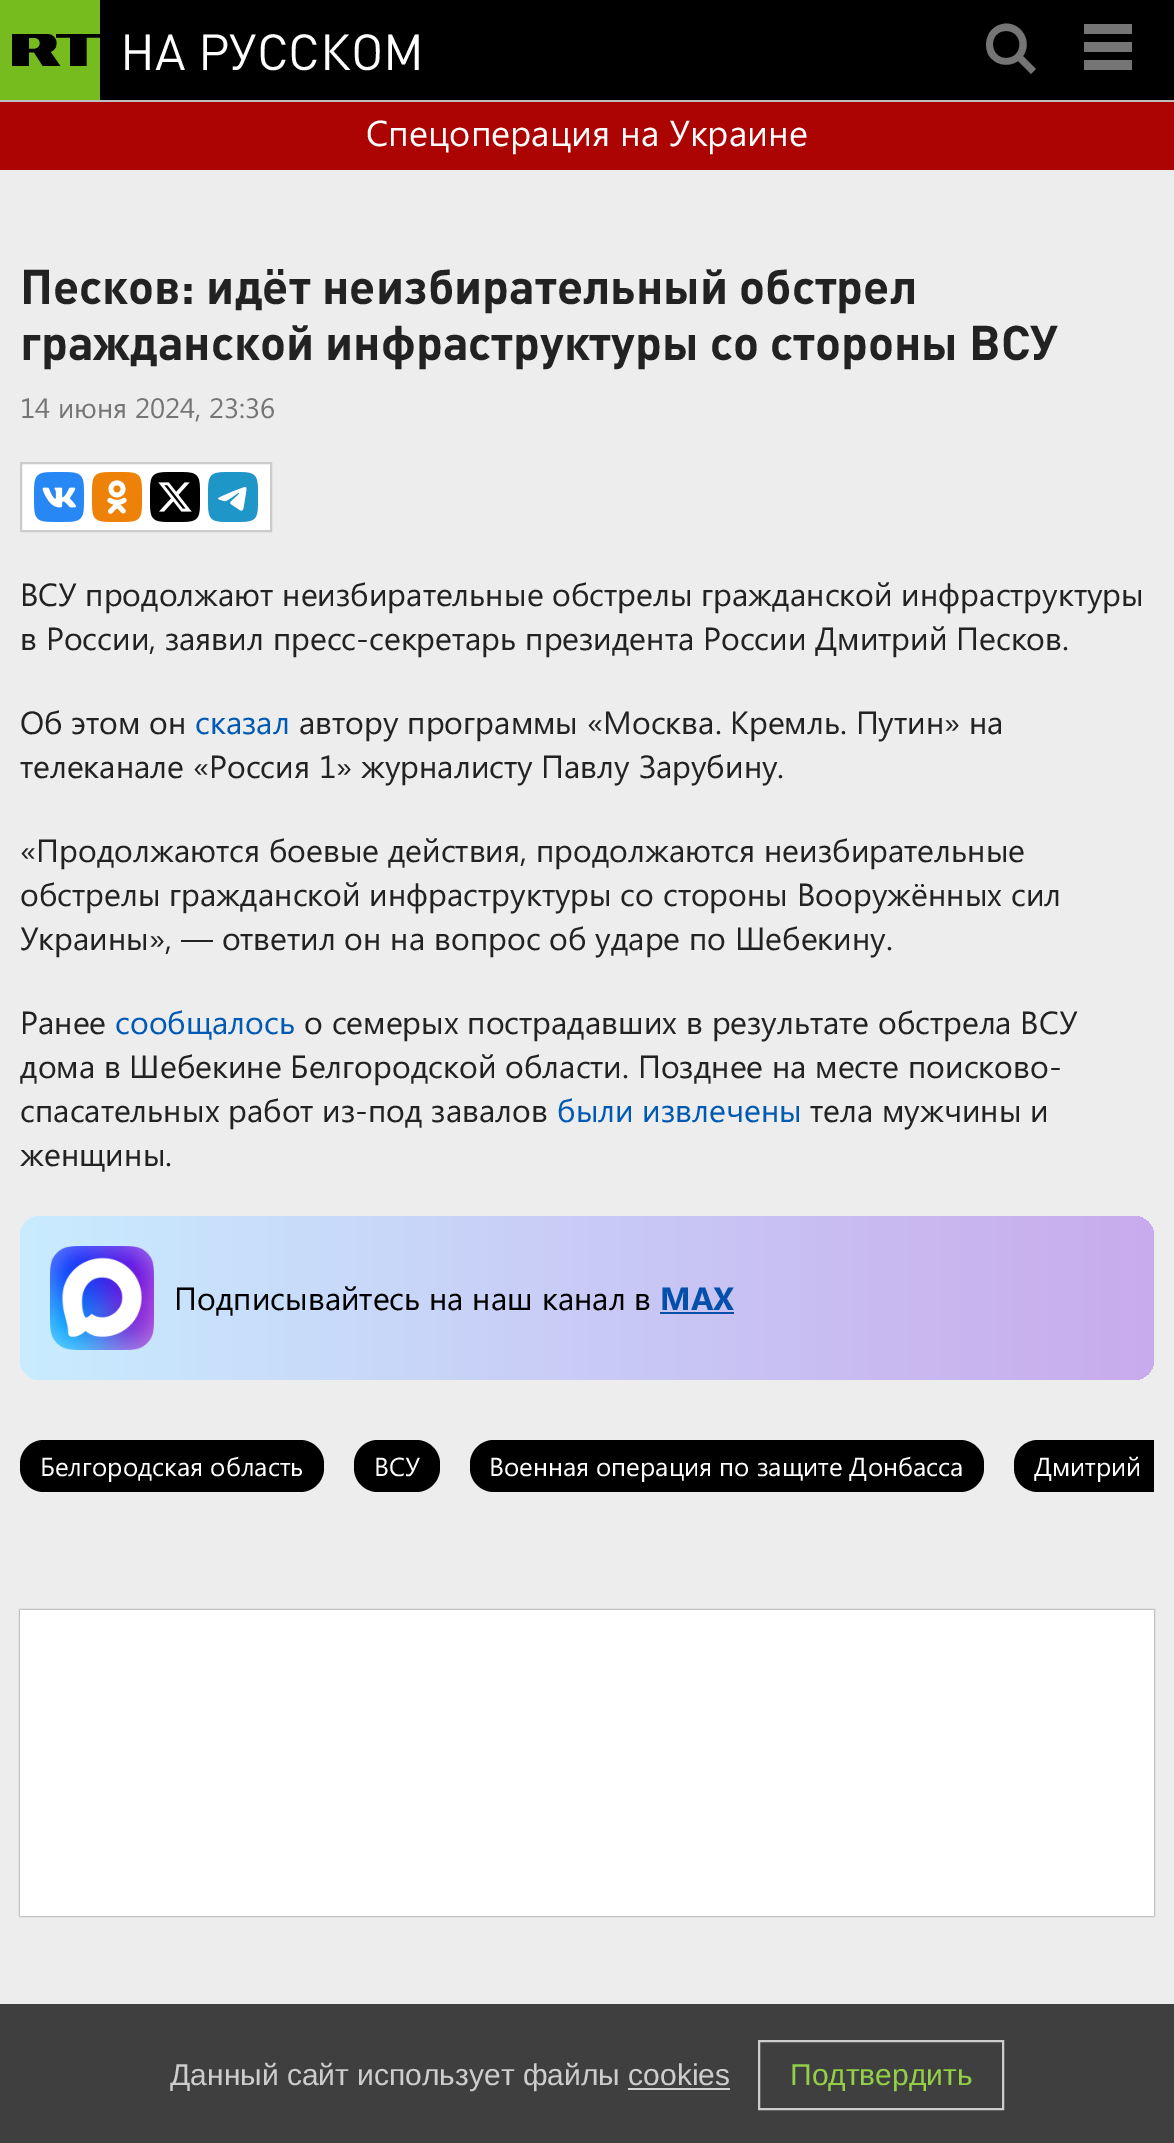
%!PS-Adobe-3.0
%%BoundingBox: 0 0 1174 2143
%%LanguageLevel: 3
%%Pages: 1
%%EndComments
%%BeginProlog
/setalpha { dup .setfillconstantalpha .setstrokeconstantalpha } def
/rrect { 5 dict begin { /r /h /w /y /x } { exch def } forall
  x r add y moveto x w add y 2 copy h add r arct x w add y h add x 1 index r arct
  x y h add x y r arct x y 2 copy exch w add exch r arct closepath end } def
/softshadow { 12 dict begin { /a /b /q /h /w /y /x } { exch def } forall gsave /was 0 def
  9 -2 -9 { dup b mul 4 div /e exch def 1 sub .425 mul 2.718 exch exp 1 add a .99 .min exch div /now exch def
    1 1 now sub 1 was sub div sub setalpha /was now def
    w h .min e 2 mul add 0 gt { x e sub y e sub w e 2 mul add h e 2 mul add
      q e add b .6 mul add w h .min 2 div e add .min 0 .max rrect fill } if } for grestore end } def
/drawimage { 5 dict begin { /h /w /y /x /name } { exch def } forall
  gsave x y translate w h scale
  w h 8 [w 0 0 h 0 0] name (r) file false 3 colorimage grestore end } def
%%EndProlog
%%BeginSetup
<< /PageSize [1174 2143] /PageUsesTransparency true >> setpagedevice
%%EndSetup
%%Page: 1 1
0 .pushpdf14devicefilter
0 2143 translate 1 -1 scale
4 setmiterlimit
0 setgray
0 0 1174 2143 rectfill
0.745 setgray
0 100 1174 2 rectfill
0.467 0.737 0.122 setrgbcolor
0 0 100 100 rectfill
(images/1.raw) 12 34 88 32 drawimage
0.459 setgray
newpath 1036 69 moveto 1031 74 lineto 1018 61 lineto 1008 68 994 65 988 54 curveto 986 49 985 42 988 36 curveto 989 32 993 28 997 26 curveto 1016 16 1035 39 1023 56 curveto closepath 1006 31 moveto 988 31 989 58 1006 58 curveto 1024 58 1024 31 1006 31 curveto closepath fill
1084 60 48 10 rectfill
1084 24 48 10 rectfill
1084 42 48 10 rectfill
0.675 0.012 0.012 setrgbcolor
0 102 1174 68 rectfill
0.929 setgray
0 170 1174 1834 rectfill
0.247 setgray
0 2004 1174 139 rectfill
1 setgray
newpath 21 463 moveto 271 463 lineto 271 531 lineto 21 531 lineto closepath gsave fill grestore
0.8 setgray
2 setlinewidth
stroke
(images/2.raw) 34 472 50 50 drawimage
(images/3.raw) 92 472 50 50 drawimage
(images/4.raw) 150 472 50 50 drawimage
(images/5.raw) 208 472 50 50 drawimage
gsave 20 1216 1134 164 20 rrect clip newpath
<< /ShadingType 2 /ColorSpace /DeviceRGB /Coords [20 1298 1154 1298] /Extend [true true] /Function << /FunctionType 2 /Domain [0 1] /C0 [0.784 0.925 1] /C1 [0.784 0.671 0.929] /N 1 >> >> shfill grestore
(images/6.raw) 50 1246 104 104 drawimage
0.016 0.31 0.667 setrgbcolor
660 1312 74 2 rectfill
0 setgray
20 1440 304 52 24 rrect fill
354 1440 86 52 24 rrect fill
470 1440 514 52 24 rrect fill
newpath 1038 1440 moveto 1154 1440 lineto 1154 1492 lineto 1038 1492 lineto 1024.5 1492 1014 1481.5 1014 1468 curveto 1014 1464 lineto 1014 1450.5 1024.5 1440 1038 1440 curveto closepath fill
0.4 setgray
20 1610 1134 306 0 1 1 softshadow
1 setgray
20 1610 1134 306 rectfill
0.804 setgray
759 2041 244 68 rectstroke
/DIN-Regular [50 0 0 -50 0 0] selectfont
1 setgray
120 70 moveto (НА РУССКОМ) show
/SegoeUI-Regular [36 0 0 -36 0 0] selectfont
366 146 moveto (Спецоперация на Украине) show
/DIN-Bold [48 0 0 -48 0 0] selectfont
0.133 setgray
20 304 moveto (Песков: идёт неизбирательный обстрел) show
20 360 moveto (гражданской инфраструктуры со стороны ВСУ) show
/SegoeUI-Regular [28 0 0 -28 0 0] selectfont
0.459 setgray
20 418 moveto (14 июня 2024, 23:36) show
/SegoeUI-Regular [32 0 0 -32 0 0] selectfont
0.133 setgray
20 606 moveto (ВСУ продолжают неизбирательные обстрелы гражданской инфраструктуры) show
20 650 moveto (в России, заявил пресс-секретарь президента России Дмитрий Песков.) show
20 734 moveto (Об этом он) show
0 0.349 0.698 setrgbcolor
195 734 moveto (сказал) show
0.133 setgray
299 734 moveto (автору программы «Москва. Кремль. Путин» на) show
20 778 moveto (телеканале «Россия 1» журналисту Павлу Зарубину.) show
20 862 moveto («Продолжаются боевые действия, продолжаются неизбирательные) show
20 906 moveto (обстрелы гражданской инфраструктуры со стороны Вооружённых сил) show
20 950 moveto (Украины», — ответил он на вопрос об ударе по Шебекину.) show
20 1034 moveto (Ранее) show
0 0.349 0.698 setrgbcolor
115 1034 moveto (сообщалось) show
0.133 setgray
304 1034 moveto (о семерых пострадавших в результате обстрела ВСУ) show
20 1078 moveto (дома в Шебекине Белгородской области. Позднее на месте поисково-) show
20 1122 moveto (спасательных работ из-под завалов) show
0 0.349 0.698 setrgbcolor
557 1122 moveto (были извлечены) show
0.133 setgray
810 1122 moveto (тела мужчины и) show
20 1166 moveto (женщины.) show
0 setgray
174 1310 moveto (Подписывайтесь на наш канал в) show
/SegoeUI-Bold [32 0 0 -32 0 0] selectfont
0.016 0.31 0.667 setrgbcolor
660 1310 moveto (MAX) show
/SegoeUI-Regular [26 0 0 -26 0 0] selectfont
1 setgray
40 1476 moveto (Белгородская область) show
374 1476 moveto (ВСУ) show
489 1476 moveto (Военная операция по защите Донбасса) show
1034 1476 moveto (Дмитрий) show
/LiberationSans-Regular [30 0 0 -30 0 0] selectfont
0.804 setgray
170 2085 moveto (Данный сайт использует файлы cookies) show
0.824 setgray
628 2088 102 2 rectfill
0.576 0.816 0.278 setrgbcolor
790 2085 moveto (Подтвердить) show
.poppdf14devicefilter showpage
%%EOF
